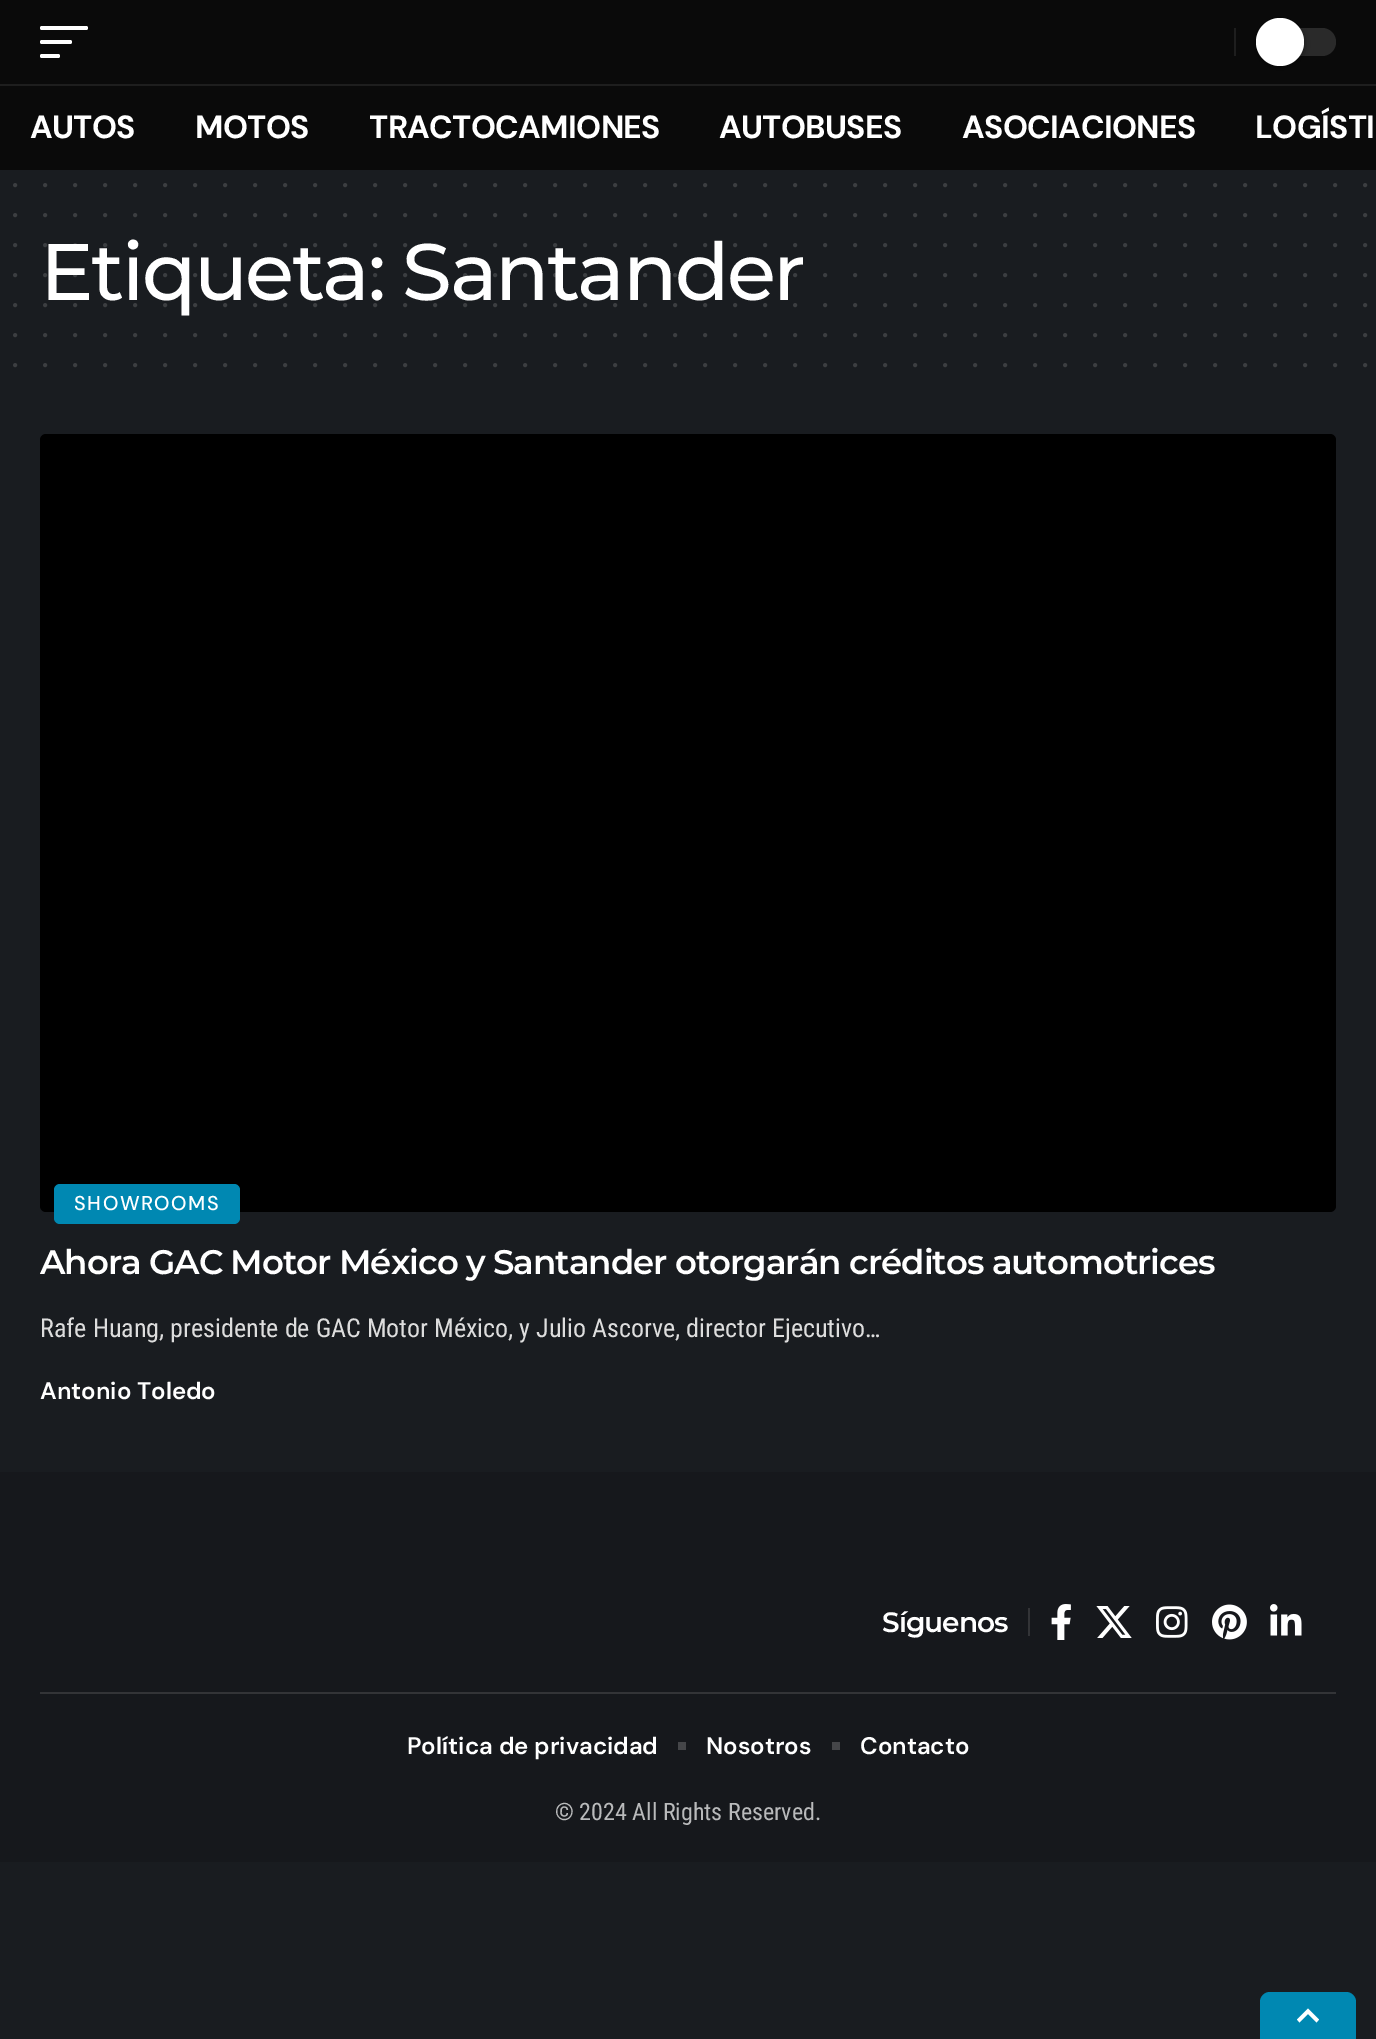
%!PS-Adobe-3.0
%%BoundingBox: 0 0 1376 2039
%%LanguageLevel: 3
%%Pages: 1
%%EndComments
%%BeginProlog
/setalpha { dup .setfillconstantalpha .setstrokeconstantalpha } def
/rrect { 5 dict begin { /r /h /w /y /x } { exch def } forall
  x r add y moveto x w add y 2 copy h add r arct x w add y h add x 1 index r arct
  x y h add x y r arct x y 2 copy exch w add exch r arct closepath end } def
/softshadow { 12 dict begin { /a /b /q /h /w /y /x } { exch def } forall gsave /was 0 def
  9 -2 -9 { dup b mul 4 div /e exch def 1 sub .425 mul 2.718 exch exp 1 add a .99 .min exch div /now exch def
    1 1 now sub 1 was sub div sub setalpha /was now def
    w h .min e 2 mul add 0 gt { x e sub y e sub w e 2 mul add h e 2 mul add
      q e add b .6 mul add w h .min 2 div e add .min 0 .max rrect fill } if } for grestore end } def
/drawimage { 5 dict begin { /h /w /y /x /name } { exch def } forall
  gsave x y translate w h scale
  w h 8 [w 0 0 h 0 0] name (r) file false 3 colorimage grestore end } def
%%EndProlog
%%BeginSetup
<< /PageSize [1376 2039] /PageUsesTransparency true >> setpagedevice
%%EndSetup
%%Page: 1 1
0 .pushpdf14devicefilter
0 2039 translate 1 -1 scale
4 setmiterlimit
0.098 0.11 0.125 setrgbcolor
0 0 1376 2039 rectfill
0.039 setgray
0 0 1376 170 rectfill
1 setgray
40 26 48 4 2 rrect fill
40 40 32 4 2 rrect fill
40 54 20 4 2 rrect fill
0.118 setgray
1234 28 2 28 rectfill
0.165 setgray
1256 28 80 28 14 rrect fill
0 setgray
1256 20 48 48 24 4 0.4 softshadow
1 setgray
newpath 1280 42 24 0 360 arc closepath fill
0.118 setgray
0 84 1376 2 rectfill
0.235 0.243 0.255 setrgbcolor
4 setlinewidth
1 setlinecap
[0 30] 0 setdash
newpath 15 185 moveto 1365.4 185 lineto stroke
newpath 15 215 moveto 1365.4 215 lineto stroke
newpath 15 335 moveto 1365.4 335 lineto stroke
newpath 15 365 moveto 1365.4 365 lineto stroke
0 setgray
40 434 1296 778 6 rrect fill
0 0.533 0.698 setrgbcolor
54 1184 186 40 6 rrect fill
0.086 0.094 0.11 setrgbcolor
0 1472 1376 390 rectfill
0.2 0.204 0.216 setrgbcolor
1028 1608 2 28 rectfill
(images/1.raw) 1051 1604 20 36 drawimage
(images/2.raw) 1096 1606 36 32 drawimage
(images/3.raw) 1156 1606 32 32 drawimage
(images/4.raw) 1212 1604 35 36 drawimage
(images/5.raw) 1270 1604 32 32 drawimage
40 1692 1296 2 rectfill
0.271 0.275 0.286 setrgbcolor
678 1742 8 8 rectfill
832 1742 8 8 rectfill
0 0.533 0.698 setrgbcolor
newpath 1270 1992 moveto 1346 1992 lineto 1351.5 1992 1356 1996.5 1356 2002 curveto 1356 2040 lineto 1260 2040 lineto 1260 2002 lineto 1260 1996.5 1264.5 1992 1270 1992 curveto closepath fill
1 setgray
newpath 1309.5 2010 moveto 1308 2008.5 lineto 1297 2019.5 lineto 1299.5 2022.5 lineto 1308 2014 lineto 1316.5 2022.5 lineto 1319 2019.5 lineto closepath fill
/DMSans-Bold [32 0 0 -32 0 0] selectfont
30 138 moveto -0.6 0 (AUTOS) ashow
195 138 moveto -0.6 0 (MOTOS) ashow
369 138 moveto -0.6 0 (TRACTOCAMIONES) ashow
719 138 moveto -0.6 0 (AUTOBUSES) ashow
962 138 moveto -0.6 0 (ASOCIACIONES) ashow
1255 138 moveto -0.6 0 (LOGÍSTI) ashow
/Montserrat-Medium [80 0 0 -80 0 0] selectfont
40 300 moveto -2.5 0 (Etiqueta: Santander) ashow
0.235 0.243 0.255 setrgbcolor
newpath 15 305 moveto 1365.4 305 lineto stroke
0.15 setalpha
1 setgray
newpath 15 275 moveto 1365.4 275 lineto stroke
newpath 15 245 moveto 1365.4 245 lineto stroke
/DMSans-Medium [20 0 0 -20 0 0] selectfont
1 setalpha
74 1210 moveto 1.5 0 (SHOWROOMS) ashow
/Montserrat-SemiBold [34 0 0 -34 0 0] selectfont
40 1274 moveto -1 0 (Ahora GAC Motor México y Santander otorgarán créditos automotrices) ashow
/RobotoCondensed-Regular [26 0 0 -26 0 0] selectfont
0.867 setgray
40 1337 moveto (Rafe Huang, presidente de GAC Motor México, y Julio Ascorve, director Ejecutivo…) show
/DMSans-SemiBold [24 0 0 -24 0 0] selectfont
1 setgray
40 1399 moveto (Antonio Toledo) show
/Montserrat-SemiBold [28 0 0 -28 0 0] selectfont
882 1632 moveto -1 0 (Síguenos) ashow
/DMSans-SemiBold [24 0 0 -24 0 0] selectfont
407 1754 moveto (Política de privacidad) show
706 1754 moveto (Nosotros) show
860 1754 moveto (Contacto) show
/RobotoCondensed-Regular [24 0 0 -24 0 0] selectfont
0.725 0.729 0.733 setrgbcolor
555 1820 moveto (© 2024 All Rights Reserved.) show
.poppdf14devicefilter showpage
%%EOF
